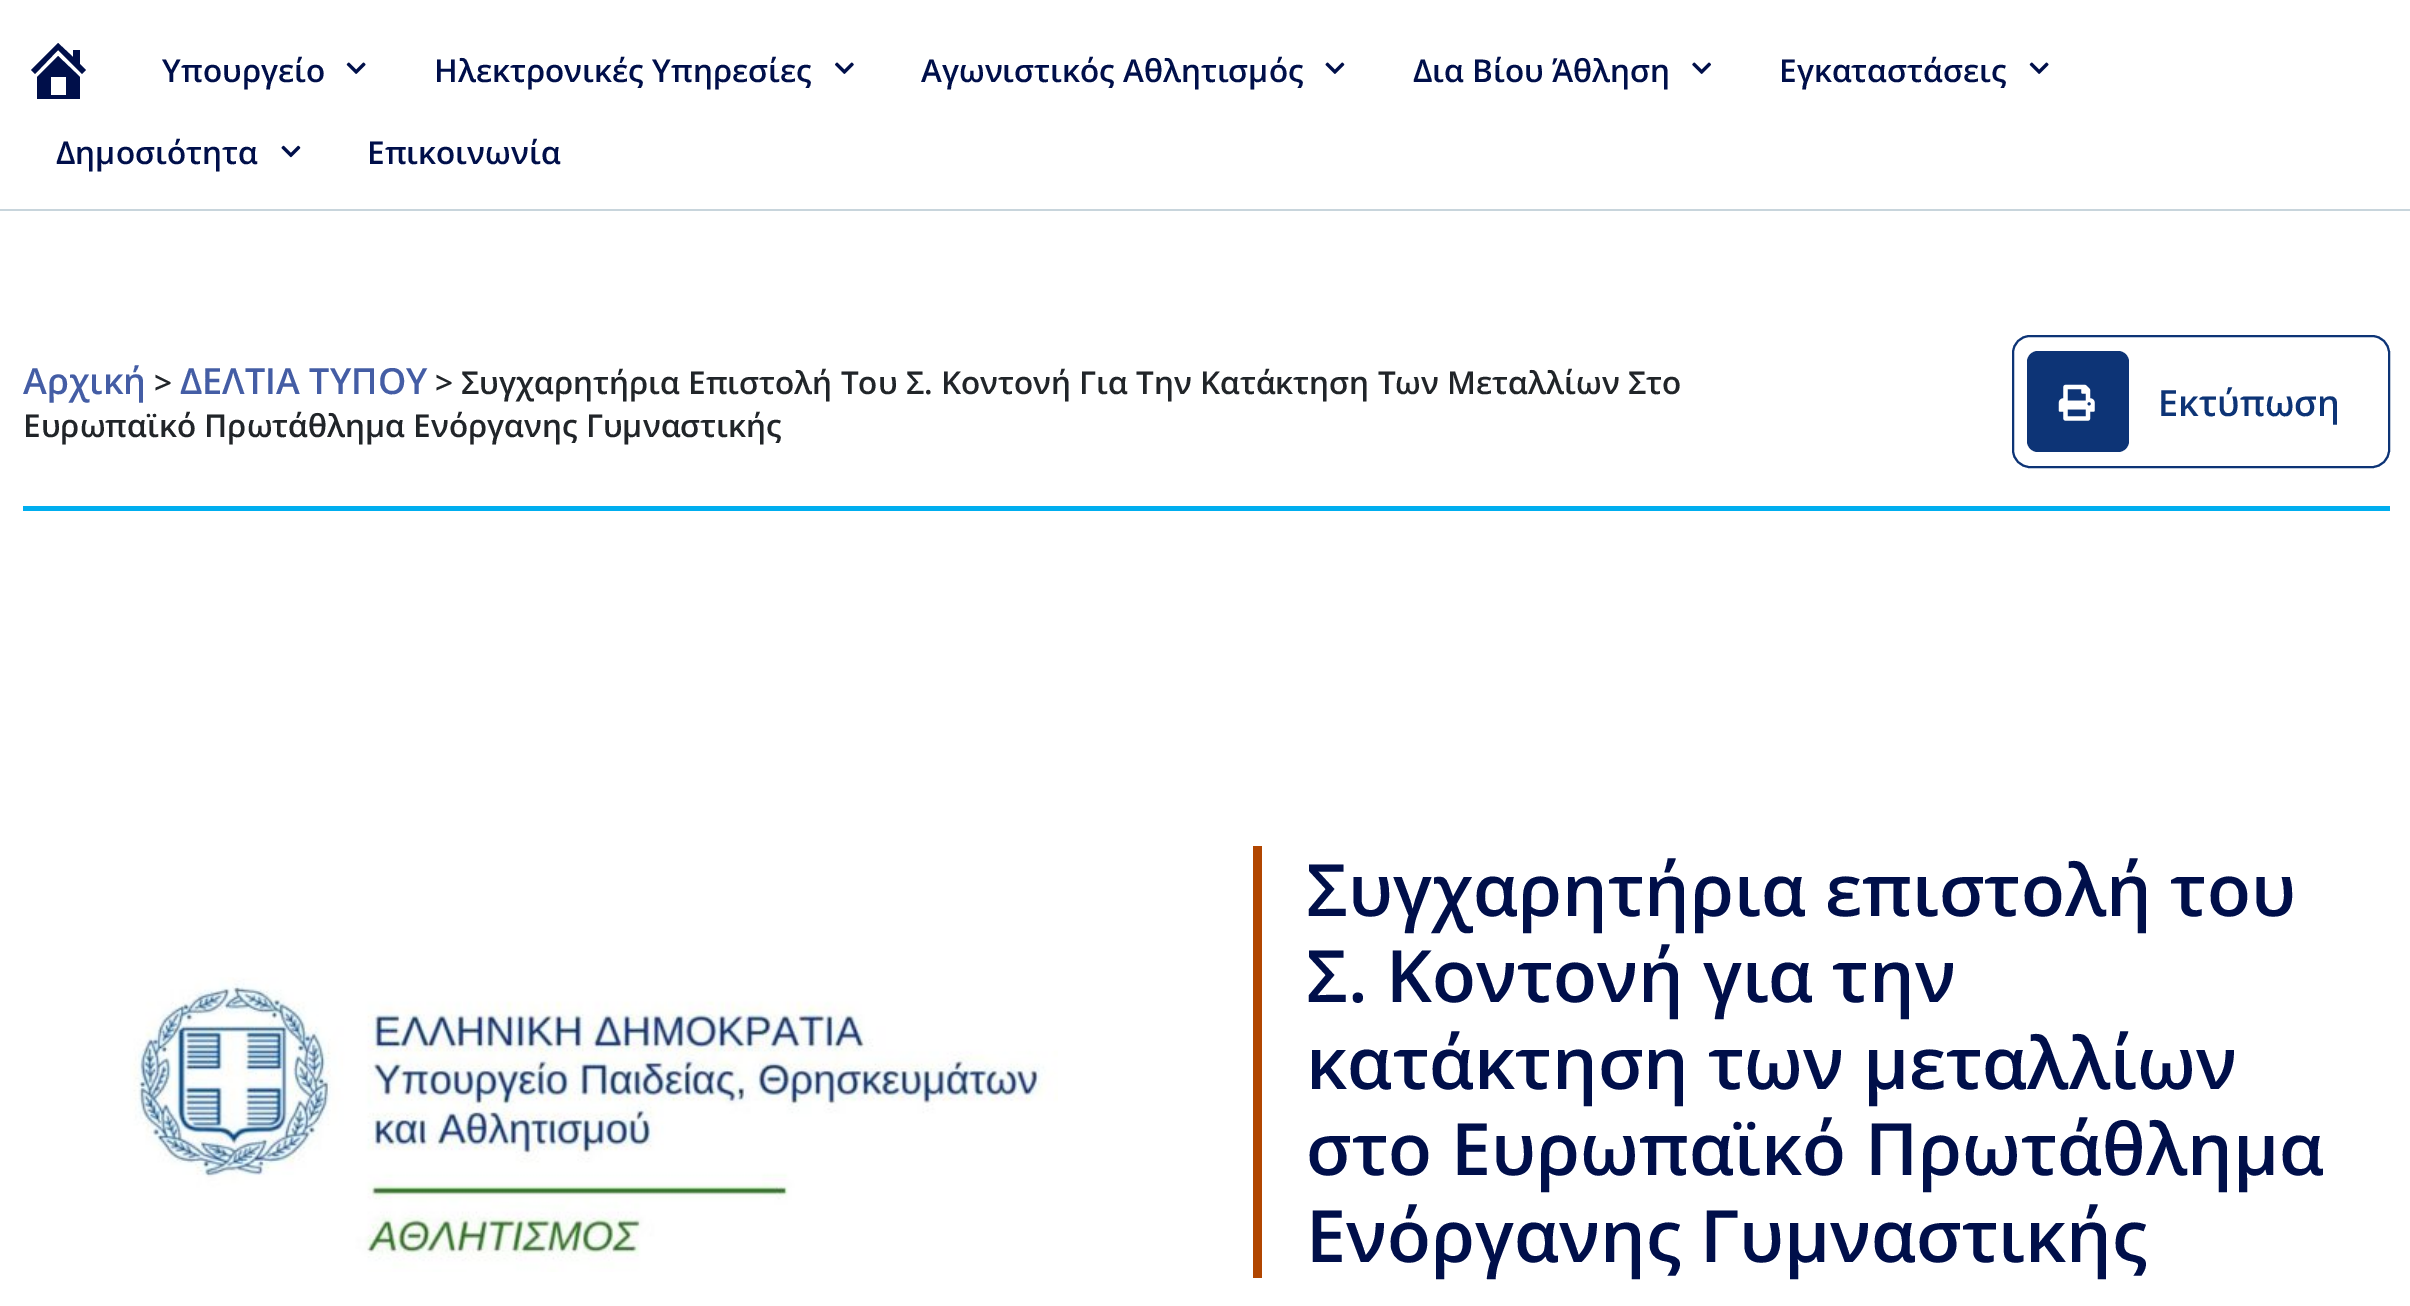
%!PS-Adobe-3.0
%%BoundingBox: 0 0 2410 1306
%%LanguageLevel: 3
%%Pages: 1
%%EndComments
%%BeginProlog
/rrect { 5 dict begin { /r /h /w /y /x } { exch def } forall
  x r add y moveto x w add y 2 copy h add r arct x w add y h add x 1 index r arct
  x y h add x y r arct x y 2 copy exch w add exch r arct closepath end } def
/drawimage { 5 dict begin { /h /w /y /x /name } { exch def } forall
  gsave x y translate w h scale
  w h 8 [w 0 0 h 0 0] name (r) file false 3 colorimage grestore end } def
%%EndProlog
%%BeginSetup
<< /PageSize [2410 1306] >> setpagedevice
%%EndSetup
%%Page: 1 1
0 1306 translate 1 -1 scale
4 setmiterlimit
1 setgray
0 0 2410 1306 rectfill
0.784 0.835 0.863 setrgbcolor
0 209 2410 2 rectfill
0 0.059 0.29 setrgbcolor
newpath 80 64 moveto 86 70 lineto 82 74 lineto 58 50 lineto 35 74 lineto 31 70 lineto 58 43 lineto 73 57 lineto 73 50 lineto 80 50 lineto closepath 58 56 moveto 80 77 lineto 80 99 lineto 37 99 lineto 37 77 lineto closepath 66 95 moveto 66 77 lineto 51 77 lineto 51 95 lineto closepath fill
(images/1.raw) 346 62 20 12 drawimage
(images/2.raw) 835 62 19 12 drawimage
(images/3.raw) 1325 62 20 12 drawimage
(images/4.raw) 1692 62 19 12 drawimage
(images/1.raw) 2029 62 20 12 drawimage
(images/5.raw) 281 145 20 13 drawimage
0 0.682 0.937 setrgbcolor
23 506 2367 5 rectfill
0.051 0.204 0.463 setrgbcolor
2 setlinewidth
2013 336 376 131 17 rrect stroke
2027 351 102 101 11 rrect fill
(images/6.raw) 2058 384 37 37 drawimage
(images/7.raw) 130 977 928 295 drawimage
0.694 0.275 0 setrgbcolor
1253 846 9 432 rectfill
/OpenSans-SemiBold [31.5 0 0 -31.5 0 0] selectfont
0 0.059 0.29 setrgbcolor
162 82 moveto (Υπουργείο) show
434 82 moveto (Ηλεκτρονικές Υπηρεσίες) show
921 82 moveto (Αγωνιστικός Αθλητισμός) show
1413 82 moveto (Δια Βίου Άθληση) show
1779 82 moveto (Εγκαταστάσεις) show
56 164 moveto (Δημοσιότητα) show
367 164 moveto (Επικοινωνία) show
/OpenSans-SemiBold [36 0 0 -36 0 0] selectfont
0.267 0.365 0.647 setrgbcolor
23 394 moveto (Αρχική) show
/OpenSans-SemiBold [31.5 0 0 -31.5 0 0] selectfont
0.129 0.145 0.161 setrgbcolor
154 394 moveto (>) show
/OpenSans-SemiBold [36 0 0 -36 0 0] selectfont
0.267 0.365 0.647 setrgbcolor
180 394 moveto (ΔΕΛΤΙΑ ΤΥΠΟΥ) show
/OpenSans-SemiBold [31.5 0 0 -31.5 0 0] selectfont
0.129 0.145 0.161 setrgbcolor
435 394 moveto (> Συγχαρητήρια Επιστολή Του Σ. Κοντονή Για Την Κατάκτηση Των Μεταλλίων Στο) show
23 437 moveto (Ευρωπαϊκό Πρωτάθλημα Ενόργανης Γυμναστικής) show
/OpenSans-SemiBold [36 0 0 -36 0 0] selectfont
0.051 0.204 0.463 setrgbcolor
2158 416 moveto (Εκτύπωση) show
/OpenSans-SemiBold [72 0 0 -72 0 0] selectfont
0 0.059 0.29 setrgbcolor
1306 916 moveto (Συγχαρητήρια επιστολή του) show
1306 1002 moveto (Σ. Κοντονή για την) show
1306 1089 moveto (κατάκτηση των μεταλλίων) show
1306 1175 moveto (στο Ευρωπαϊκό Πρωτάθλημα) show
1306 1262 moveto (Ενόργανης Γυμναστικής) show
showpage
%%EOF
